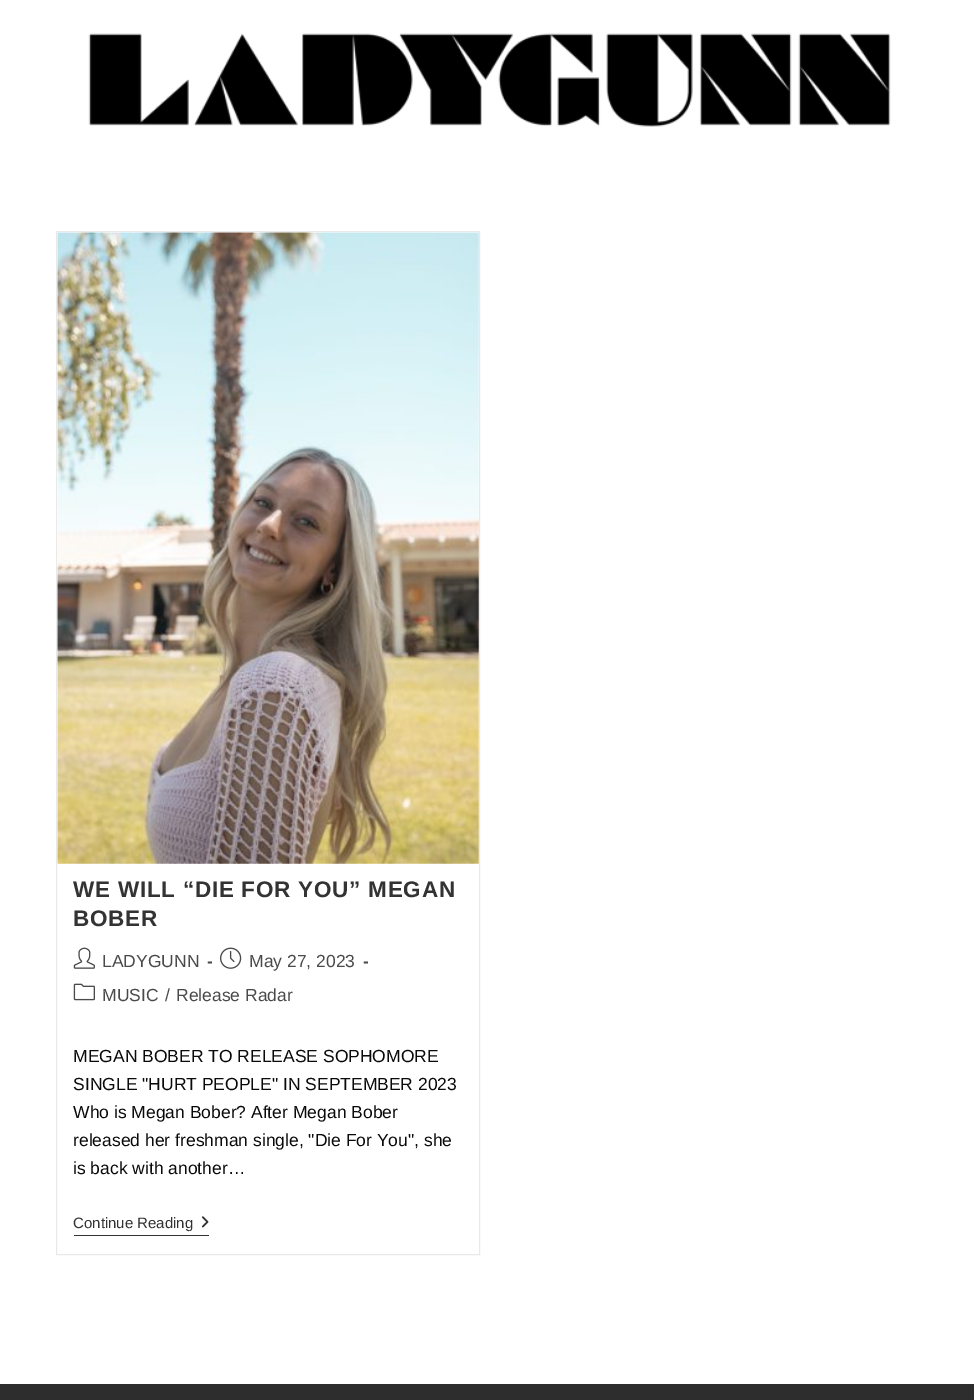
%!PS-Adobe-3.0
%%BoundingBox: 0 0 974 1400
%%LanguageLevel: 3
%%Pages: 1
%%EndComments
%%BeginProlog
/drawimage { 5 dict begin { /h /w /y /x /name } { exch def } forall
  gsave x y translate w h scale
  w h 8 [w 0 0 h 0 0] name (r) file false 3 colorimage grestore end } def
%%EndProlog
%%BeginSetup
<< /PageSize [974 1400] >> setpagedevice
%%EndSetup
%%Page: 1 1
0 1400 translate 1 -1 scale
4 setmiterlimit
1 setgray
0 0 974 1400 rectfill
(images/1.raw) 88 33 803 94 drawimage
0.914 setgray
56.5 231.5 423 1023 rectstroke
(images/2.raw) 57 232 422 632 drawimage
(images/3.raw) 73 947 22 22 drawimage
(images/4.raw) 220 947 22 22 drawimage
(images/5.raw) 73 983 22 18 drawimage
0.2 setgray
74 1235 135 1 rectfill
(images/6.raw) 201 1216 8 12 drawimage
0.176 setgray
0 1384 974 16 rectfill
/LiberationSans-Bold [22.5 0 0 -22.5 0 0] selectfont
0.2 setgray
73 897 moveto 0.75 0 (WE WILL “DIE FOR YOU” MEGAN) ashow
73 926 moveto 0.75 0 (BOBER) ashow
/LiberationSans-Regular [17.5 0 0 -17.5 0 0] selectfont
0.29 setgray
102 967 moveto (LADYGUNN) show
/LiberationSans-Bold [17.5 0 0 -17.5 0 0] selectfont
207 967 moveto (-) show
/LiberationSans-Regular [17.5 0 0 -17.5 0 0] selectfont
249 967 moveto (May 27, 2023) show
/LiberationSans-Bold [17.5 0 0 -17.5 0 0] selectfont
363 967 moveto (-) show
/LiberationSans-Regular [17.5 0 0 -17.5 0 0] selectfont
102 1001 moveto (MUSIC) show
165 1001 moveto (/) show
176 1001 moveto (Release Radar) show
0.039 setgray
73 1062 moveto (MEGAN BOBER TO RELEASE SOPHOMORE) show
73 1090 moveto (SINGLE "HURT PEOPLE" IN SEPTEMBER 2023) show
73 1118 moveto (Who is Megan Bober? After Megan Bober) show
73 1146 moveto (released her freshman single, "Die For You", she) show
73 1174 moveto (is back with another…) show
/LiberationSans-Regular [15 0 0 -15 0 0] selectfont
0.2 setgray
73 1228 moveto (Continue Reading) show
showpage
%%EOF
